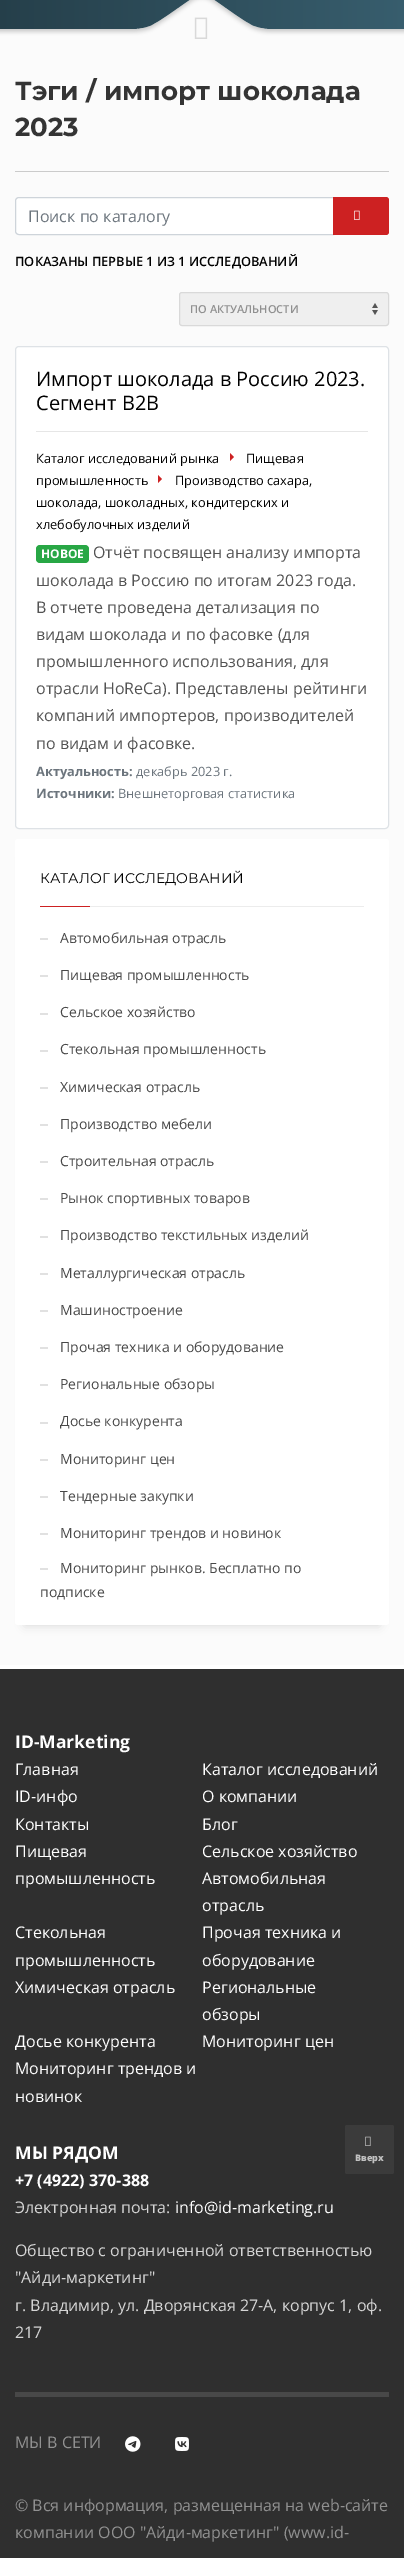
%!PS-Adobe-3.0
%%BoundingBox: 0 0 404 2558
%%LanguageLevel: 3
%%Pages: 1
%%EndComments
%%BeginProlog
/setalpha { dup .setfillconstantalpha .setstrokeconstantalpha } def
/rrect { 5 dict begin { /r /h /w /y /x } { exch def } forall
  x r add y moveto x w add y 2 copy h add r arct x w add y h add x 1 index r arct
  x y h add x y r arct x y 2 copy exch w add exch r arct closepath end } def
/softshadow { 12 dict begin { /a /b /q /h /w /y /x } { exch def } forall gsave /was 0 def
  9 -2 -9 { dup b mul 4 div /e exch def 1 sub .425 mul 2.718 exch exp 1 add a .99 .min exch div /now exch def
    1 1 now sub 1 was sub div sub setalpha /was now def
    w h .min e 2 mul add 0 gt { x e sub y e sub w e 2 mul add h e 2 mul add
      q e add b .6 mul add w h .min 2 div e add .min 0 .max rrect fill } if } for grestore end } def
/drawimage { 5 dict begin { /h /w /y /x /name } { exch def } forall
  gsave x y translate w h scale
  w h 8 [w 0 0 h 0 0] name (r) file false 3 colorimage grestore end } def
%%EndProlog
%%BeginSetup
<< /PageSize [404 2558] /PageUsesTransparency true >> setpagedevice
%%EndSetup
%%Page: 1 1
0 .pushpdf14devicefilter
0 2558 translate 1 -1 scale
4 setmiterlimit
0.984 setgray
0 0 404 2558 rectfill
gsave newpath 0 0 moveto 404 0 lineto 404 29 lineto 0 29 lineto closepath clip newpath
<< /ShadingType 2 /ColorSpace /DeviceRGB /Coords [0 -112 404 -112] /Extend [true true] /Function << /FunctionType 2 /Domain [0 1] /C0 [0.145 0.247 0.29] /C1 [0.216 0.365 0.427] /N 1 >> >> shfill grestore
(images/1.raw) 0 0 404 38 drawimage
(images/2.raw) 194 17 14 22 drawimage
0.796 setgray
15 171 374 1 rectfill
1 setgray
newpath 19 197.5 moveto 333.5 197.5 lineto 333.5 234.5 lineto 19 234.5 lineto 17 234.5 15.5 233 15.5 231 curveto 15.5 201 lineto 15.5 199 17 197.5 19 197.5 curveto closepath gsave fill grestore
0.808 0.831 0.855 setrgbcolor
stroke
0.804 0.129 0.133 setrgbcolor
newpath 333 197 moveto 386 197 lineto 387.5 197 389 198.5 389 200 curveto 389 232 lineto 389 233.5 387.5 235 386 235 curveto 333 235 lineto closepath fill
(images/3.raw) 354 210 6 10 drawimage
0.937 setgray
179 292 210 34 3 rrect fill
(images/4.raw) 372 303 6 12 drawimage
0.851 setgray
179.5 292.5 209 33 2.5 rrect stroke
1 setgray
15.5 346.5 373 482 3.5 rrect gsave fill grestore
0.871 0.886 0.902 setrgbcolor
stroke
0.902 setgray
36 431 332 1 rectfill
0.804 0.129 0.133 setrgbcolor
newpath 230 461 moveto 230 453 lineto 234 457 lineto closepath fill
newpath 158 483 moveto 158 475 lineto 162 479 lineto closepath fill
0.157 0.655 0.271 setrgbcolor
36 545 53 18 4 rrect fill
0 setgray
25 859 354 766 0 5 0.15 softshadow
1 setgray
15 839 374 786 3 rrect fill
0.804 0.129 0.133 setrgbcolor
40 906 50 1 rectfill
0.925 setgray
90 906 274 1 rectfill
0.882 setgray
40 938 8 2 rectfill
40 975 8 2 rectfill
40 1013 8 2 rectfill
40 1050 8 2 rectfill
40 1087 8 2 rectfill
40 1124 8 2 rectfill
40 1161 8 2 rectfill
40 1198 8 2 rectfill
40 1236 8 2 rectfill
40 1273 8 2 rectfill
40 1310 8 2 rectfill
40 1347 8 2 rectfill
40 1384 8 2 rectfill
40 1422 8 2 rectfill
40 1459 8 2 rectfill
40 1496 8 2 rectfill
40 1533 8 2 rectfill
40 1568 8 2 rectfill
0.184 setgray
0 1669 404 889 rectfill
1 setgray
0 1665 404 4 rectfill
0.282 setgray
15 2392 374 5 rectfill
(images/5.raw) 125 2436 16 16 drawimage
(images/6.raw) 175 2437 14 14 drawimage
0.231 setgray
345 2125 49 49 2 rrect fill
(images/7.raw) 365 2136 6 10 drawimage
/Montserrat-Bold [26 0 0 -26 0 0] selectfont
0.204 setgray
15 100 moveto (Тэги / импорт шоколада) show
15 136 moveto (2023) show
/OpenSans-Regular [16 0 0 -16 0 0] selectfont
0.424 0.459 0.49 setrgbcolor
28 222 moveto (Поиск по каталогу) show
/OpenSans-SemiBold [12.8 0 0 -12.8 0 0] selectfont
0 setgray
15 266 moveto (ПОКАЗАНЫ ПЕРВЫЕ 1 ИЗ 1 ИССЛЕДОВАНИЙ) show
/OpenSans-SemiBold [11 0 0 -11 0 0] selectfont
0.565 setgray
190 313 moveto (ПО АКТУАЛЬНОСТИ) show
/OpenSans-Regular [20 0 0 -20 0 0] selectfont
0 setgray
36 386 moveto (Импорт шоколада в Россию 2023.) show
36 410 moveto (Сегмент B2B) show
/OpenSans-Regular [12.8 0 0 -12.8 0 0] selectfont
36 463 moveto (Каталог исследований рынка) show
246 463 moveto (Пищевая) show
36 485 moveto (промышленность) show
175 485 moveto (Производство сахара,) show
36 507 moveto (шоколада, шоколадных, кондитерских и) show
36 529 moveto (хлебобулочных изделий) show
/OpenSans-Bold [12 0 0 -12 0 0] selectfont
1 setgray
41 558 moveto (НОВОЕ) show
/OpenSans-Regular [16 0 0 -16 0 0] selectfont
0.325 setgray
93 558 moveto (Отчёт посвящен анализу импорта) show
36 586 moveto (шоколада в Россию по итогам 2023 года.) show
36 613 moveto (В отчете проведена детализация по) show
36 640 moveto (видам шоколада и по фасовке \(для) show
36 667 moveto (промышленного использования, для) show
36 694 moveto (отрасли HoReCa\). Представлены рейтинги) show
36 721 moveto (компаний импортеров, производителей) show
36 749 moveto (по видам и фасовке.) show
/OpenSans-Bold [12.8 0 0 -12.8 0 0] selectfont
0.424 0.459 0.49 setrgbcolor
36 776 moveto (Актуальность:) show
/OpenSans-Regular [12.8 0 0 -12.8 0 0] selectfont
136 776 moveto (декабрь 2023 г.) show
/OpenSans-Bold [12.8 0 0 -12.8 0 0] selectfont
36 798 moveto (Источники:) show
/OpenSans-Regular [12.8 0 0 -12.8 0 0] selectfont
118 798 moveto (Внешнеторговая статистика) show
/Montserrat-Regular [14 0 0 -14 0 0] selectfont
0 setgray
40 883 moveto (КАТАЛОГ ИССЛЕДОВАНИЙ) show
/OpenSans-Regular [14 0 0 -14 0 0] selectfont
0.282 setgray
60 943 moveto (Автомобильная отрасль) show
60 980 moveto (Пищевая промышленность) show
60 1017 moveto (Сельское хозяйство) show
60 1054 moveto (Стекольная промышленность) show
60 1092 moveto (Химическая отрасль) show
60 1129 moveto (Производство мебели) show
60 1166 moveto (Строительная отрасль) show
60 1203 moveto (Рынок спортивных товаров) show
60 1240 moveto (Производство текстильных изделий) show
60 1278 moveto (Металлургическая отрасль) show
60 1315 moveto (Машиностроение) show
60 1352 moveto (Прочая техника и оборудование) show
60 1389 moveto (Региональные обзоры) show
60 1426 moveto (Досье конкурента) show
60 1464 moveto (Мониторинг цен) show
60 1501 moveto (Тендерные закупки) show
60 1538 moveto (Мониторинг трендов и новинок) show
60 1573 moveto (Мониторинг рынков. Бесплатно по) show
40 1597 moveto (подписке) show
/OpenSans-Bold [17.5 0 0 -17.5 0 0] selectfont
1 setgray
15 1748 moveto (ID-Marketing) show
/OpenSans-Regular [16 0 0 -16 0 0] selectfont
15 1775 moveto (Главная) show
202 1775 moveto (Каталог исследований) show
15 1802 moveto (ID-инфо) show
202 1802 moveto (О компании) show
15 1830 moveto (Контакты) show
202 1830 moveto (Блог) show
15 1857 moveto (Пищевая) show
15 1884 moveto (промышленность) show
202 1857 moveto (Сельское хозяйство) show
202 1884 moveto (Автомобильная) show
202 1911 moveto (отрасль) show
15 1938 moveto (Стекольная) show
15 1966 moveto (промышленность) show
202 1938 moveto (Прочая техника и) show
202 1966 moveto (оборудование) show
15 1993 moveto (Химическая отрасль) show
202 1993 moveto (Региональные) show
202 2020 moveto (обзоры) show
15 2047 moveto (Досье конкурента) show
202 2047 moveto (Мониторинг цен) show
15 2074 moveto (Мониторинг трендов и) show
15 2102 moveto (новинок) show
/OpenSans-Bold [17.5 0 0 -17.5 0 0] selectfont
15 2159 moveto (МЫ РЯДОМ) show
/OpenSans-Bold [16 0 0 -16 0 0] selectfont
15 2186 moveto (+7 \(4922\) 370-388) show
/OpenSans-Regular [16 0 0 -16 0 0] selectfont
0.835 setgray
15 2213 moveto (Электронная почта:) show
1 setgray
175 2213 moveto (info@id-marketing.ru) show
0.835 setgray
15 2256 moveto (Общество с ограниченной ответственностью) show
15 2283 moveto ("Айди-маркетинг") show
15 2311 moveto (г. Владимир, ул. Дворянская 27-А, корпус 1, оф.) show
15 2338 moveto (217) show
0.565 setgray
15 2448 moveto (МЫ В СЕТИ) show
15 2511 moveto (© Вся информация, размещенная на web-сайте) show
15 2538 moveto (компании ООО "Айди-маркетинг" \(www.id-) show
/OpenSans-ExtraBold [9 0 0 -9 0 0] selectfont
0.757 setgray
355 2161 moveto (Вверх) show
.poppdf14devicefilter showpage
%%EOF
